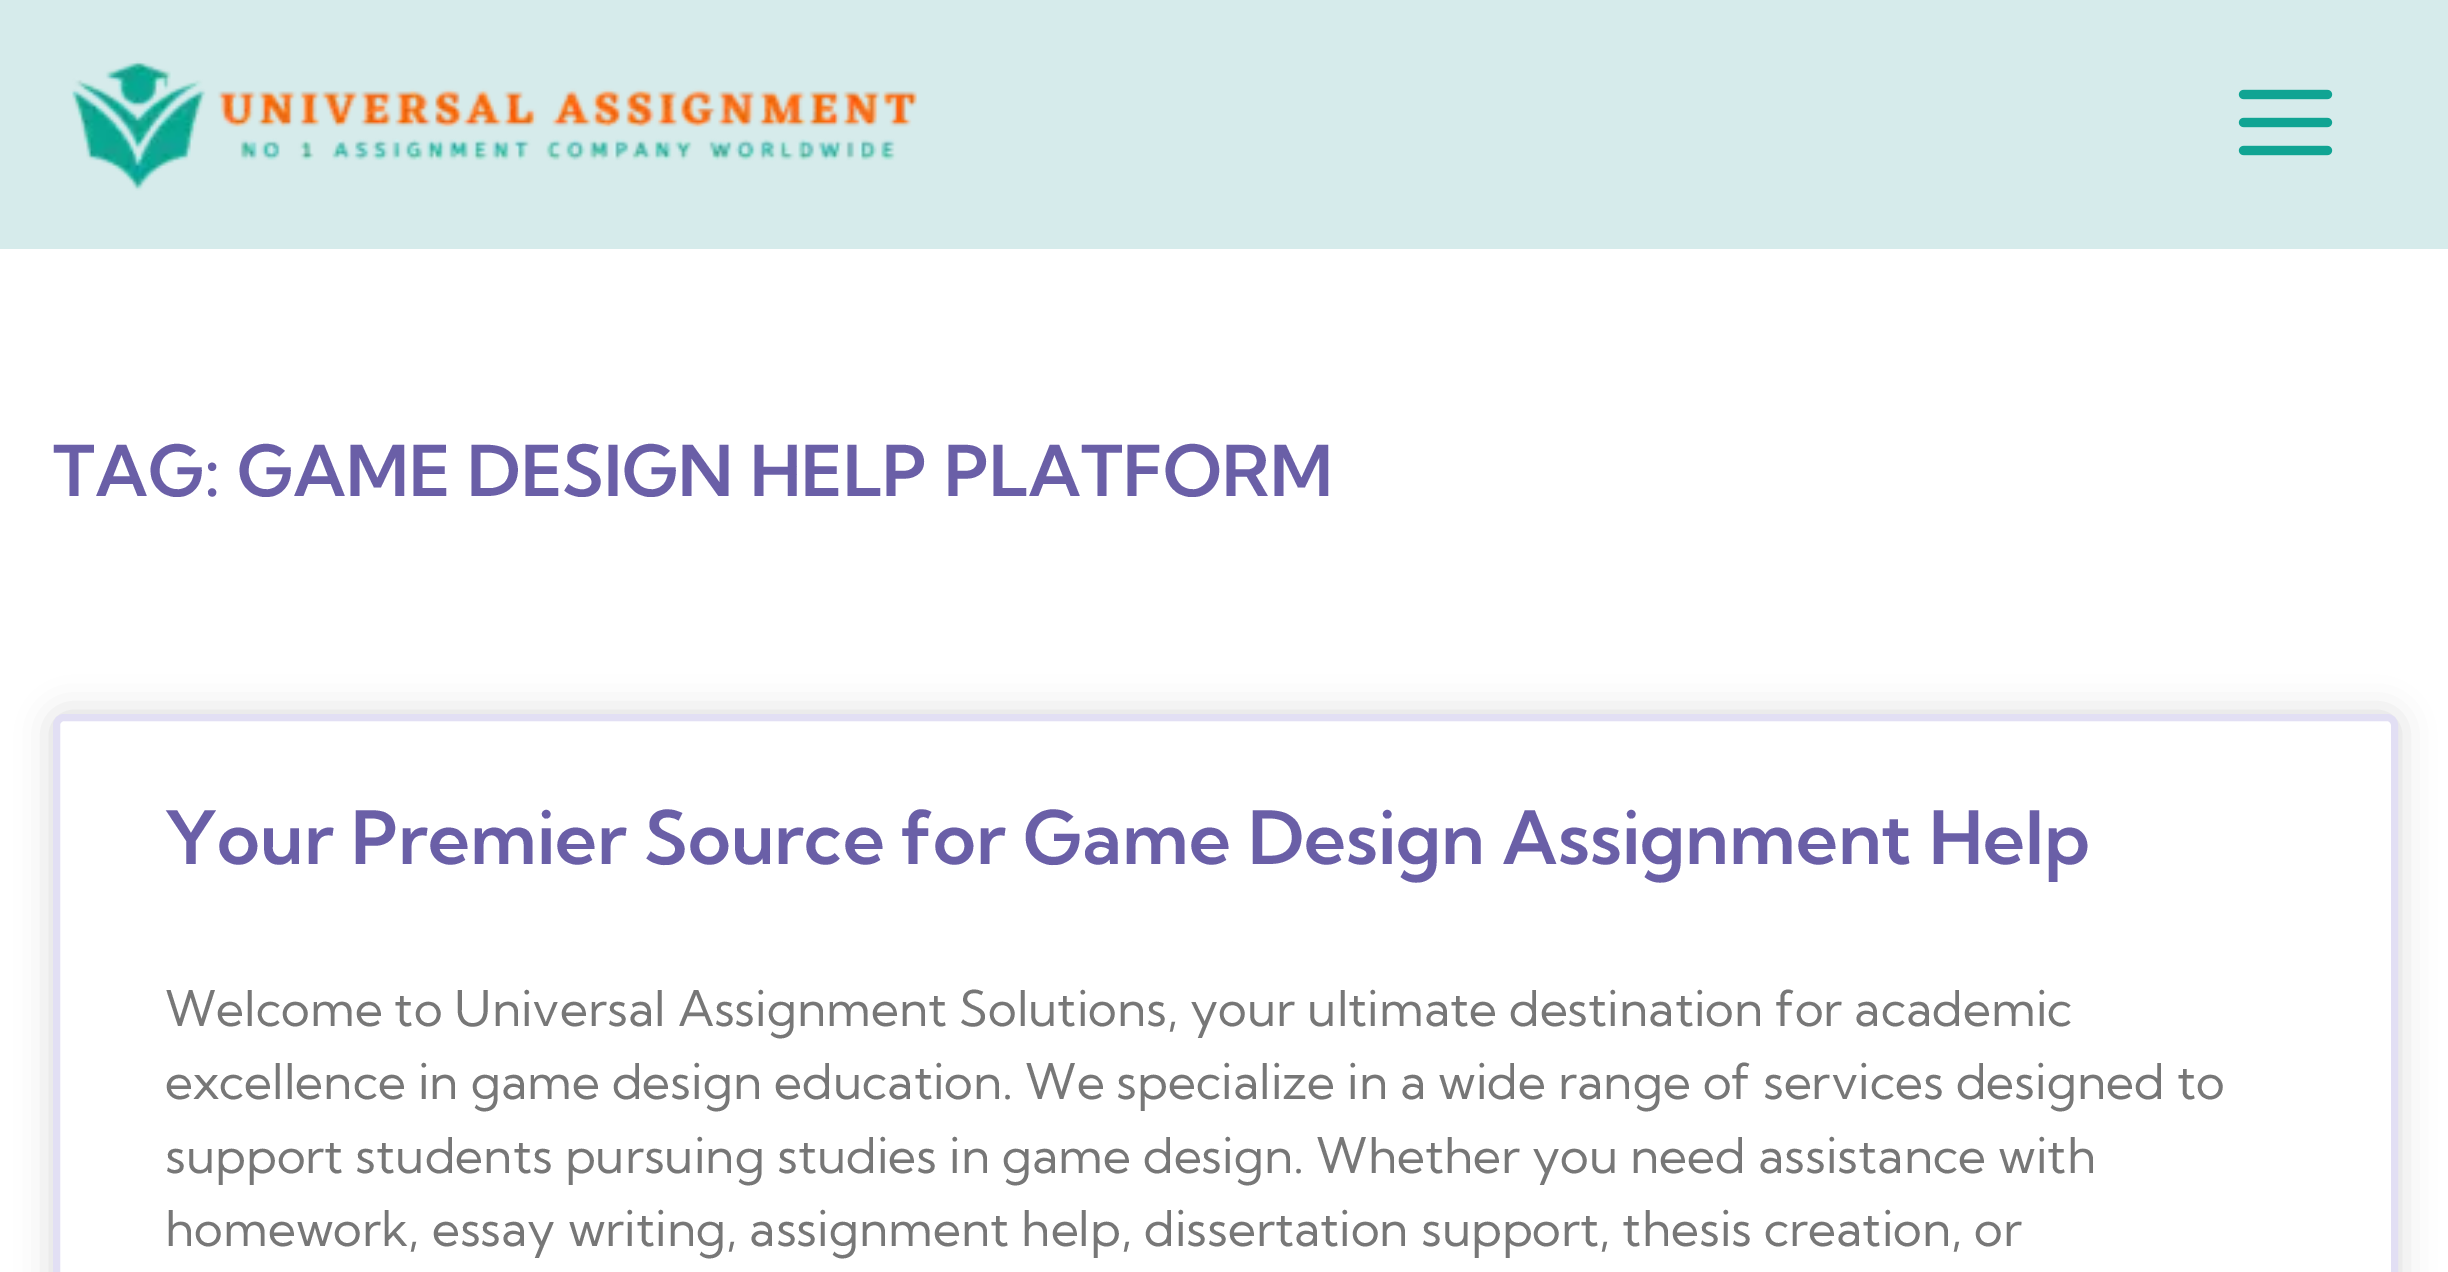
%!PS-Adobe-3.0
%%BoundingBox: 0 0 2448 1272
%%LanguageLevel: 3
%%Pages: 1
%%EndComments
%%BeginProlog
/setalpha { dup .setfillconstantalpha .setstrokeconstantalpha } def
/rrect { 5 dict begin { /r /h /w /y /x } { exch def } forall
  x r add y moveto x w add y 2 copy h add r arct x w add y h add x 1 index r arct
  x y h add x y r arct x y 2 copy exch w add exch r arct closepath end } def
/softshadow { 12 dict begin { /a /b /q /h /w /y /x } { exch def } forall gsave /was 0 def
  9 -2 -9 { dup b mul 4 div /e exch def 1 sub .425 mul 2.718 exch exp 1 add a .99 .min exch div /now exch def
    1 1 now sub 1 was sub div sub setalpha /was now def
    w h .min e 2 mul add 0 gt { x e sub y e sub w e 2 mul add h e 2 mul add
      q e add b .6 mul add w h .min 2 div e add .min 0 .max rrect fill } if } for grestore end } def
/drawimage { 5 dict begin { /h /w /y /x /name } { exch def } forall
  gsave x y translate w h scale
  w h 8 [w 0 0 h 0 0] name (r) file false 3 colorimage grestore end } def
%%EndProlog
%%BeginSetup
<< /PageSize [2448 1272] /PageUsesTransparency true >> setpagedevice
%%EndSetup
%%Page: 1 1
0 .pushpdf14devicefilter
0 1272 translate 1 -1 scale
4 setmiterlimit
1 setgray
0 0 2448 1272 rectfill
0.839 0.922 0.922 setrgbcolor
0 0 2448 249 rectfill
(images/1.raw) 70 60 847 131 drawimage
(images/2.raw) 2238 89 95 67 drawimage
0 setgray
53 714 2345 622 11 17.5 0.15 softshadow
1 setgray
56.5 717.5 2338 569 7.5 rrect gsave fill grestore
0.886 0.875 0.957 setrgbcolor
7 setlinewidth
stroke
/KumbhSans-SemiBold [70 0 0 -70 0 0] selectfont
0.416 0.373 0.655 setrgbcolor
53 496 moveto (TAG: GAME DESIGN HELP PLATFORM) show
/KumbhSans-SemiBold [73.5 0 0 -73.5 0 0] selectfont
165 864 moveto (Your Premier Source for Game Design Assignment Help) show
/KumbhSans-Regular [49 0 0 -49 0 0] selectfont
0.467 setgray
165 1026 moveto (Welcome to Universal Assignment Solutions, your ultimate destination for academic) show
165 1099 moveto (excellence in game design education. We specialize in a wide range of services designed to) show
165 1173 moveto (support students pursuing studies in game design. Whether you need assistance with) show
165 1246 moveto (homework, essay writing, assignment help, dissertation support, thesis creation, or) show
.poppdf14devicefilter showpage
%%EOF
